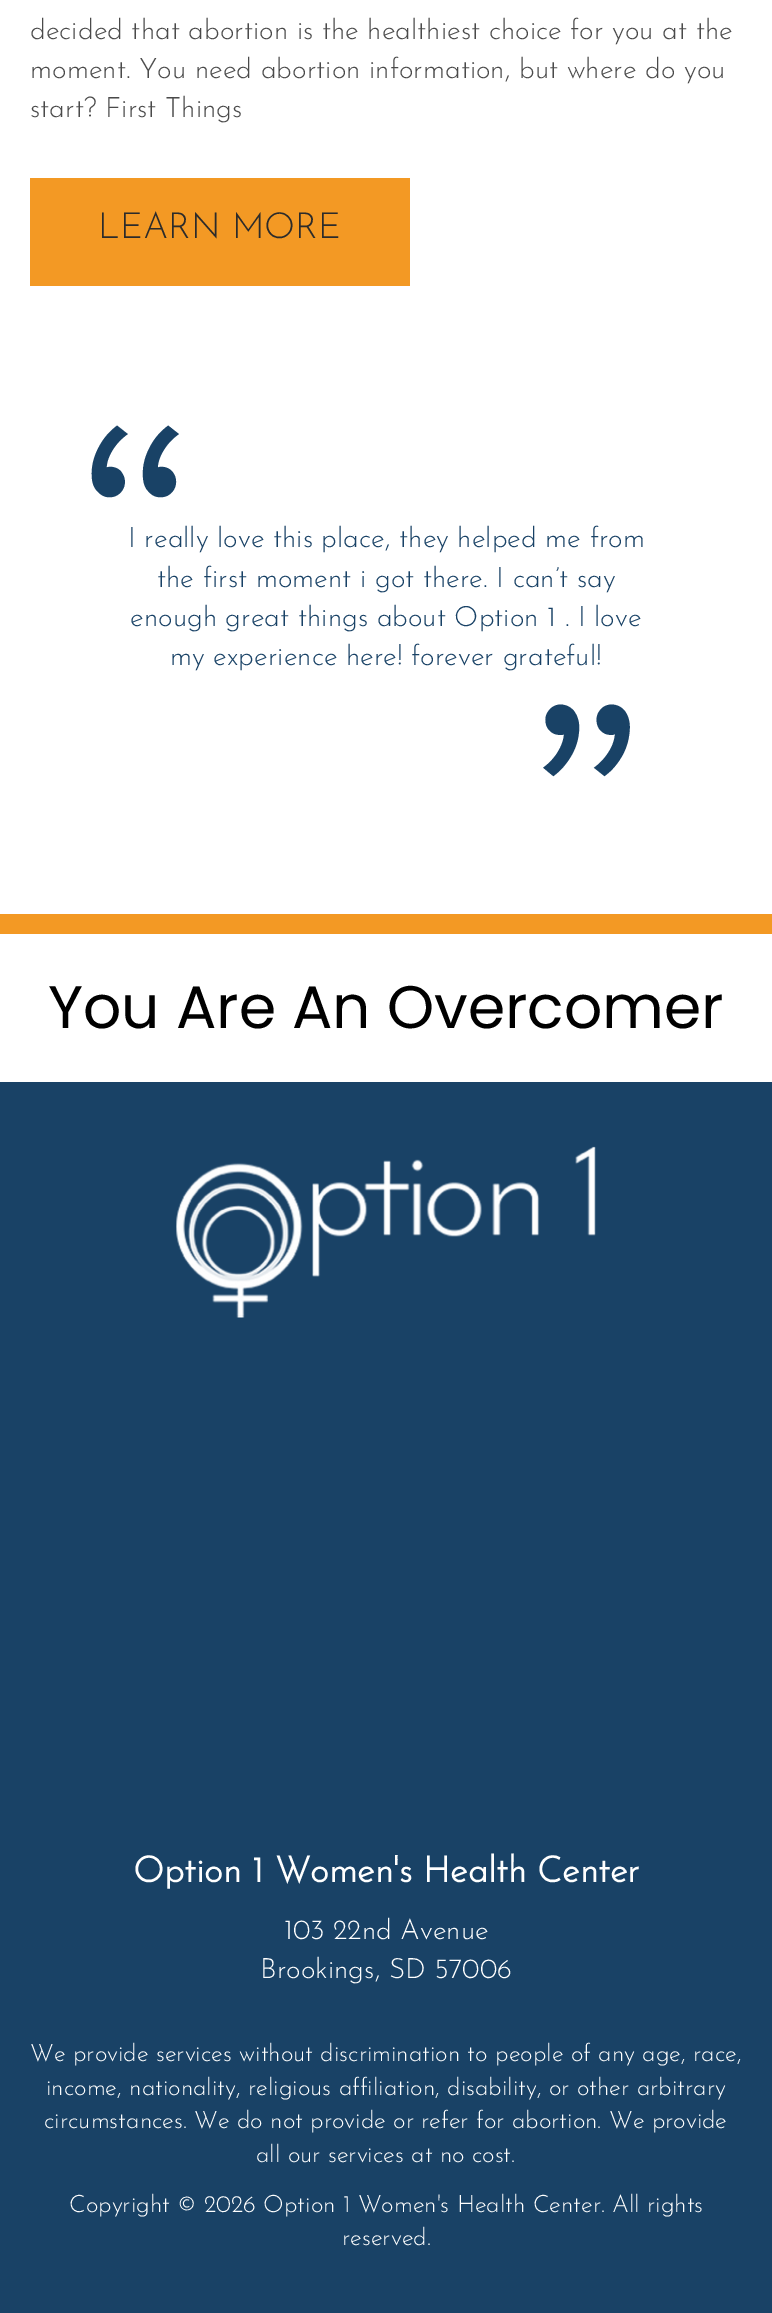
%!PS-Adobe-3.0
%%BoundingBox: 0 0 772 2313
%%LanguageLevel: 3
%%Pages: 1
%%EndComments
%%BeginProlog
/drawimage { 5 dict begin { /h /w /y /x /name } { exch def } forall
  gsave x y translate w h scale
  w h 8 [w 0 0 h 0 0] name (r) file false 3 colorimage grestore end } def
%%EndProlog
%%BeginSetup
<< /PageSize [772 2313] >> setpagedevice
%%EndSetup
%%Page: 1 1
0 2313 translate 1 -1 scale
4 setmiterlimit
1 setgray
0 0 772 2313 rectfill
0.953 0.6 0.141 setrgbcolor
30 178 380 108 rectfill
0 914 772 20 rectfill
0.098 0.259 0.4 setrgbcolor
0 1082 772 1231 rectfill
(images/1.raw) 176 1146 420 172 drawimage
/JosefinSans-Thin [28 0 0 -28 0 0] selectfont
0.29 setgray
30 39 moveto (decided that abortion is the healthiest choice for you at the) show
30 78 moveto (moment. You need abortion information, but where do you) show
30 117 moveto (start? First Things) show
/JosefinSans-Thin [36 0 0 -36 0 0] selectfont
0.169 setgray
98 238 moveto (LEARN MORE) show
/ProximaNova-Light [360 0 0 -360 0 0] selectfont
0.098 0.259 0.4 setrgbcolor
70 669 moveto (“) show
/JosefinSans-Thin [28 0 0 -28 0 0] selectfont
128 547 moveto (I really love this place, they helped me from) show
157 587 moveto (the first moment i got there. I can’t say) show
130 626 moveto (enough great things about Option 1 . I love) show
170 665 moveto (my experience here! forever grateful!) show
/ProximaNova-Light [360 0 0 -360 0 0] selectfont
522 948 moveto (”) show
/Poppins-Regular [60 0 0 -60 0 0] selectfont
0 setgray
48 1028 moveto (You Are An Overcomer) show
/JosefinSans-Bold [36 0 0 -36 0 0] selectfont
1 setgray
133 1882 moveto (Option 1 Women's Health Center) show
/JosefinSans-Thin [28 0 0 -28 0 0] selectfont
284 1939 moveto (103 22nd Avenue) show
260 1978 moveto (Brookings, SD 57006) show
/JosefinSans-Thin [24 0 0 -24 0 0] selectfont
30 2061 moveto (We provide services without discrimination to people of any age, race,) show
46 2095 moveto (income, nationality, religious affiliation, disability, or other arbitrary) show
44 2128 moveto (circumstances. We do not provide or refer for abortion. We provide) show
256 2162 moveto (all our services at no cost.) show
69 2212 moveto (Copyright © 2026 Option 1 Women's Health Center. All rights) show
342 2245 moveto (reserved.) show
showpage
%%EOF
